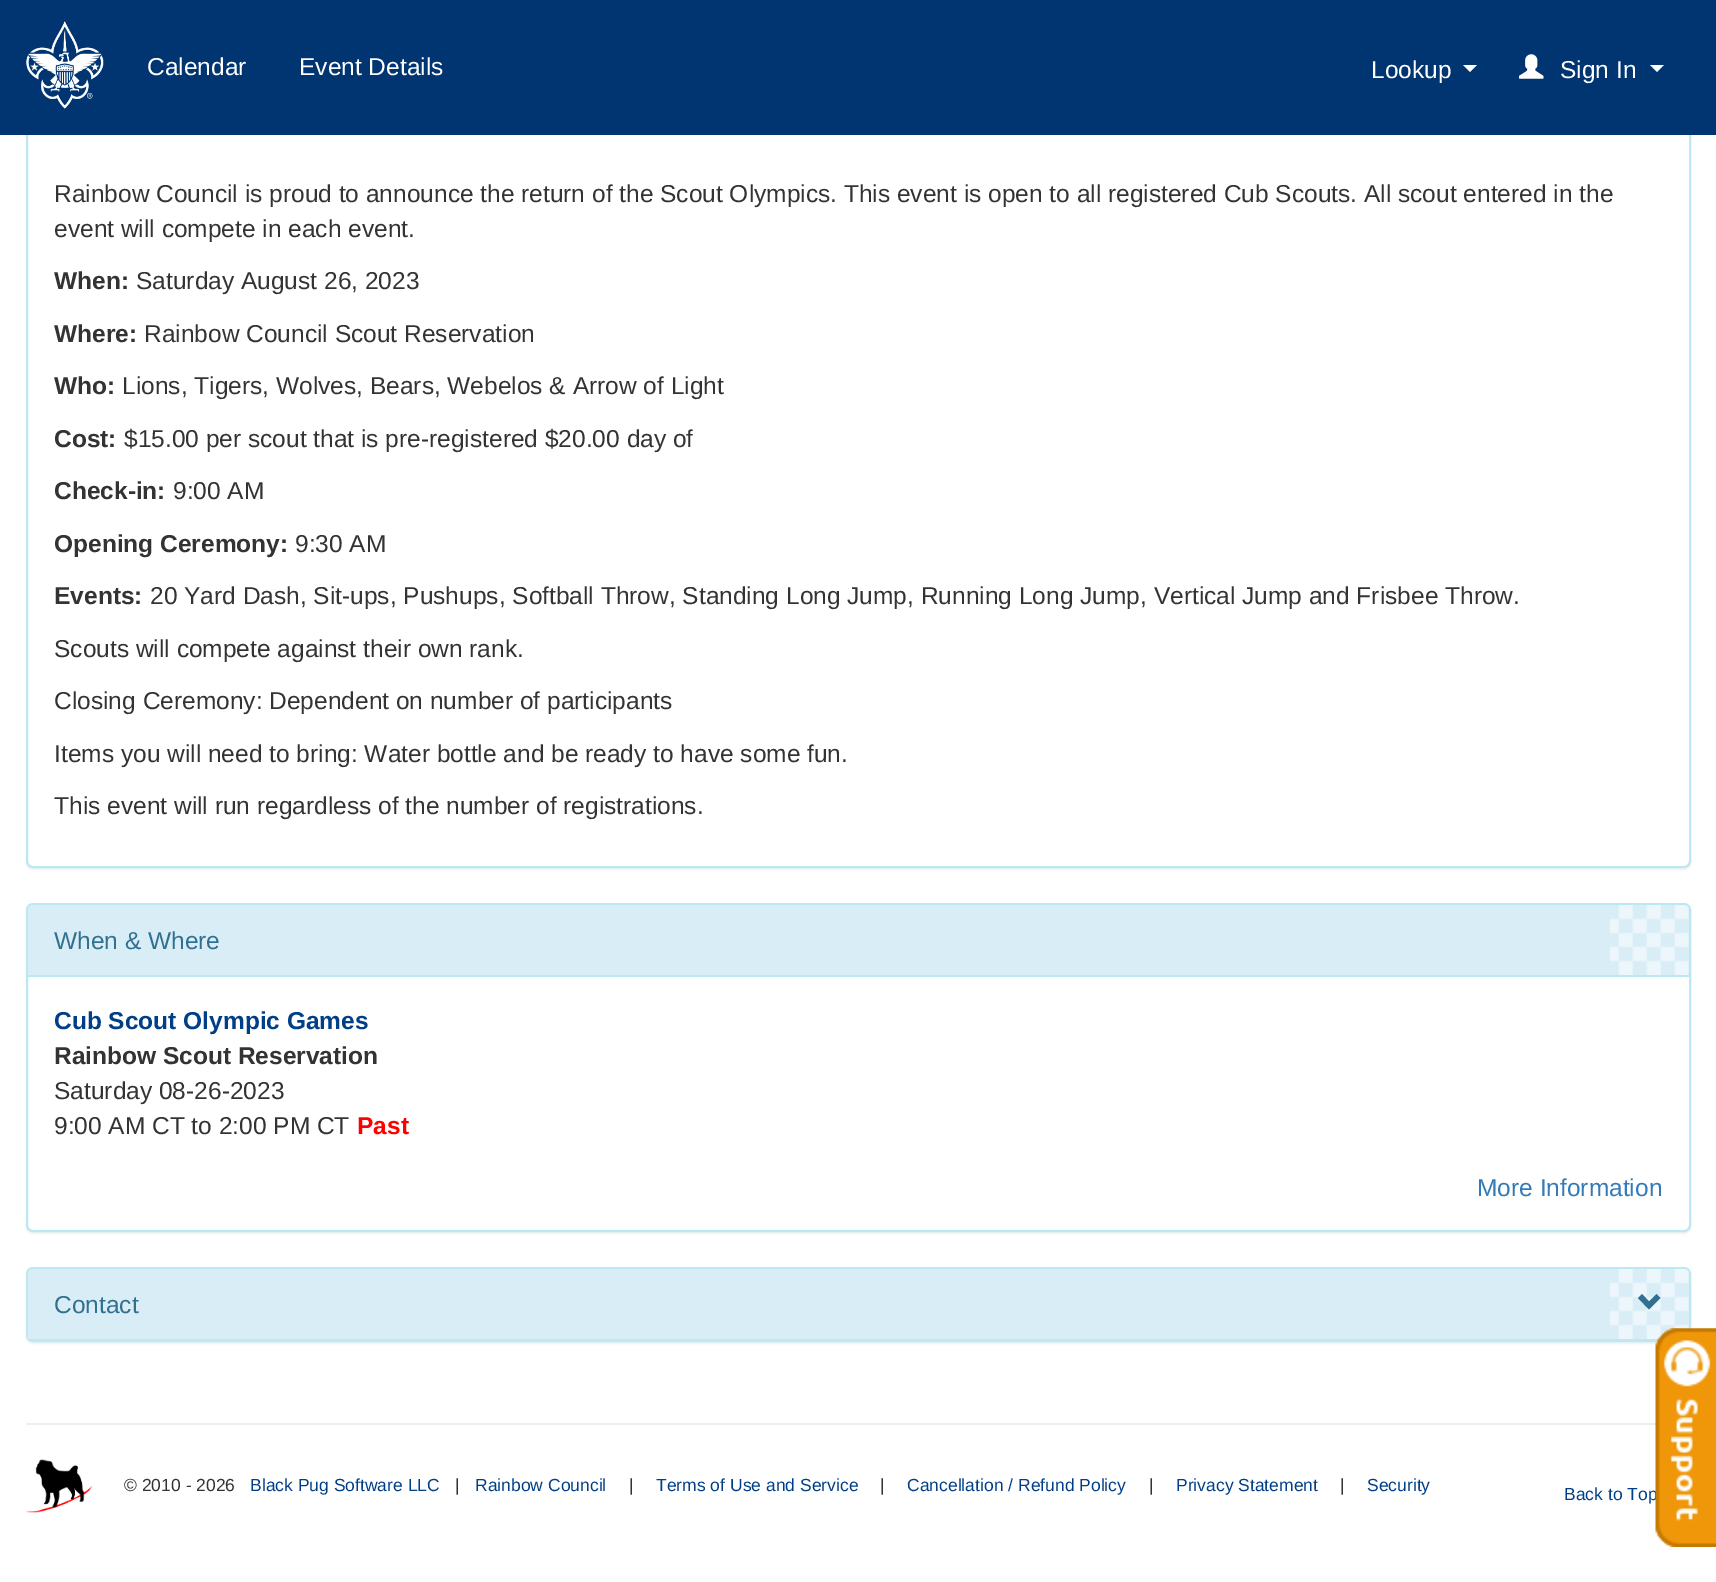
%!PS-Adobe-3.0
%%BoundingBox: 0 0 1716 1582
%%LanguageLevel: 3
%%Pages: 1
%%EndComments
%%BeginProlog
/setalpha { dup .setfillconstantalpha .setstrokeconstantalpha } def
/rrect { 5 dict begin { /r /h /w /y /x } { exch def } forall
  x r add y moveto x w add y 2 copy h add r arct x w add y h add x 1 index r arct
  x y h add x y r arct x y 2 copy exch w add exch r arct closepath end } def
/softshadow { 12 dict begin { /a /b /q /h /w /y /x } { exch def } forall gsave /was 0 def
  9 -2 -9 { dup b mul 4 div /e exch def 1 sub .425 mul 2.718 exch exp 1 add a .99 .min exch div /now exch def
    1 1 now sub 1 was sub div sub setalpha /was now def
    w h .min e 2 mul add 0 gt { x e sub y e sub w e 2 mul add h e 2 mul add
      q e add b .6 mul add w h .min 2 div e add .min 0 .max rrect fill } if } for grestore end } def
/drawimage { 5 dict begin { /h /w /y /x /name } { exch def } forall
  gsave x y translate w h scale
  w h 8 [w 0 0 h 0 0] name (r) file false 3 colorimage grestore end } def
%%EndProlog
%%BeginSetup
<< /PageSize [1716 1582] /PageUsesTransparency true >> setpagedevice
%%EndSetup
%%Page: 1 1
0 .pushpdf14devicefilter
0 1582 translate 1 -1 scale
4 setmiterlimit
1 setgray
0 0 1716 1582 rectfill
0 setgray
26 -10 1665 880 7 1 0.05 softshadow
1 setgray
27 -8 1663 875 6 rrect gsave fill grestore
0.737 0.91 0.945 setrgbcolor
2 setlinewidth
stroke
0 0.208 0.443 setrgbcolor
0 0 1716 135 rectfill
(images/1.raw) 26 21 78 88 drawimage
1 setgray
newpath 1463 65 moveto 1477 65 lineto 1470 72 lineto closepath fill
(images/2.raw) 1519 54 25 25 drawimage
newpath 1650 65 moveto 1664 65 lineto 1657 72 lineto closepath fill
0 setgray
26 905 1665 329 7 1 0.05 softshadow
1 setgray
27 904 1663 327 6 rrect gsave fill grestore
0.737 0.91 0.945 setrgbcolor
stroke
0.851 0.929 0.969 setrgbcolor
newpath 33 905 moveto 1684 905 lineto 1687 905 1689 907 1689 910 curveto 1689 977 lineto 28 977 lineto 28 910 lineto 28 907 30 905 33 905 curveto closepath fill
(images/3.raw) 1610 905 79 70 drawimage
0.737 0.91 0.945 setrgbcolor
28 975 1661 2 rectfill
0 setgray
26 1269 1665 75 7 1 0.05 softshadow
0.737 0.91 0.945 setrgbcolor
27 1268 1663 73 6 rrect stroke
0.851 0.929 0.969 setrgbcolor
newpath 33 1269 moveto 1684 1269 lineto 1687 1269 1689 1271 1689 1274 curveto 1689 1341 lineto 28 1341 lineto 28 1274 lineto 28 1271 30 1269 33 1269 curveto closepath fill
(images/3.raw) 1610 1269 79 70 drawimage
0.737 0.91 0.945 setrgbcolor
28 1339 1633 2 rectfill
0.192 0.439 0.561 setrgbcolor
newpath 1660.5 1298 moveto 1649 1309.5 lineto 1638 1298 lineto 1642 1294 lineto 1649 1301.5 lineto 1656.5 1294 lineto closepath fill
0.933 setgray
26 1423 1630 2 rectfill
(images/4.raw) 26 1459 67 54 drawimage
/LiberationSans-Regular [24.5 0 0 -24.5 0 0] selectfont
1 setgray
147 75 moveto (Calendar) show
299 75 moveto (Event Details) show
1371 78 moveto (Lookup) show
1560 78 moveto (Sign In) show
0.2 setgray
54 202 moveto (Rainbow Council is proud to announce the return of the Scout Olympics. This event is open to all registered Cub Scouts. All scout entered in the) show
54 237 moveto (event will compete in each event.) show
/LiberationSans-Bold [24.5 0 0 -24.5 0 0] selectfont
54 289 moveto (When:) show
/LiberationSans-Regular [24.5 0 0 -24.5 0 0] selectfont
136 289 moveto (Saturday August 26, 2023) show
/LiberationSans-Bold [24.5 0 0 -24.5 0 0] selectfont
54 342 moveto (Where:) show
/LiberationSans-Regular [24.5 0 0 -24.5 0 0] selectfont
144 342 moveto (Rainbow Council Scout Reservation) show
/LiberationSans-Bold [24.5 0 0 -24.5 0 0] selectfont
54 394 moveto (Who:) show
/LiberationSans-Regular [24.5 0 0 -24.5 0 0] selectfont
122 394 moveto (Lions, Tigers, Wolves, Bears, Webelos & Arrow of Light) show
/LiberationSans-Bold [24.5 0 0 -24.5 0 0] selectfont
54 447 moveto (Cost:) show
/LiberationSans-Regular [24.5 0 0 -24.5 0 0] selectfont
124 447 moveto ($15.00 per scout that is pre-registered $20.00 day of) show
/LiberationSans-Bold [24.5 0 0 -24.5 0 0] selectfont
54 499 moveto (Check-in:) show
/LiberationSans-Regular [24.5 0 0 -24.5 0 0] selectfont
173 499 moveto (9:00 AM) show
/LiberationSans-Bold [24.5 0 0 -24.5 0 0] selectfont
54 552 moveto (Opening Ceremony:) show
/LiberationSans-Regular [24.5 0 0 -24.5 0 0] selectfont
295 552 moveto (9:30 AM) show
/LiberationSans-Bold [24.5 0 0 -24.5 0 0] selectfont
54 604 moveto (Events:) show
/LiberationSans-Regular [24.5 0 0 -24.5 0 0] selectfont
150 604 moveto (20 Yard Dash, Sit-ups, Pushups, Softball Throw, Standing Long Jump, Running Long Jump, Vertical Jump and Frisbee Throw.) show
54 657 moveto (Scouts will compete against their own rank.) show
54 709 moveto (Closing Ceremony: Dependent on number of participants) show
54 762 moveto (Items you will need to bring: Water bottle and be ready to have some fun.) show
54 814 moveto (This event will run regardless of the number of registrations.) show
0.192 0.439 0.561 setrgbcolor
54 949 moveto (When & Where) show
/LiberationSans-Bold [24.5 0 0 -24.5 0 0] selectfont
0 0.247 0.529 setrgbcolor
54 1029 moveto (Cub Scout Olympic Games) show
0.2 setgray
54 1064 moveto (Rainbow Scout Reservation) show
/LiberationSans-Regular [24.5 0 0 -24.5 0 0] selectfont
54 1099 moveto (Saturday 08-26-2023) show
54 1134 moveto (9:00 AM CT to 2:00 PM CT) show
/LiberationSans-Bold [24.5 0 0 -24.5 0 0] selectfont
1 0 0 setrgbcolor
357 1134 moveto (Past) show
/LiberationSans-Regular [24.5 0 0 -24.5 0 0] selectfont
0.2 0.478 0.718 setrgbcolor
1477 1196 moveto (More Information) show
0.192 0.439 0.561 setrgbcolor
54 1313 moveto (Contact) show
/LiberationSans-Regular [17.5 0 0 -17.5 0 0] selectfont
0.2 setgray
124 1491 moveto (© 2010 - 2026) show
0 0.247 0.529 setrgbcolor
250 1491 moveto (Black Pug Software LLC) show
0.2 setgray
455 1491 moveto (|) show
0 0.247 0.529 setrgbcolor
475 1491 moveto (Rainbow Council) show
0.2 setgray
629 1491 moveto (|) show
0 0.247 0.529 setrgbcolor
656 1491 moveto (Terms of Use and Service) show
0.2 setgray
880 1491 moveto (|) show
0 0.247 0.529 setrgbcolor
907 1491 moveto (Cancellation / Refund Policy) show
0.2 setgray
1149 1491 moveto (|) show
0 0.247 0.529 setrgbcolor
1176 1491 moveto (Privacy Statement) show
0.2 setgray
1340 1491 moveto (|) show
0 0.247 0.529 setrgbcolor
1367 1491 moveto (Security) show
1564 1500 moveto (Back to Top) show
(images/5.raw) 1655 1328 61 219 drawimage
.poppdf14devicefilter showpage
%%EOF
